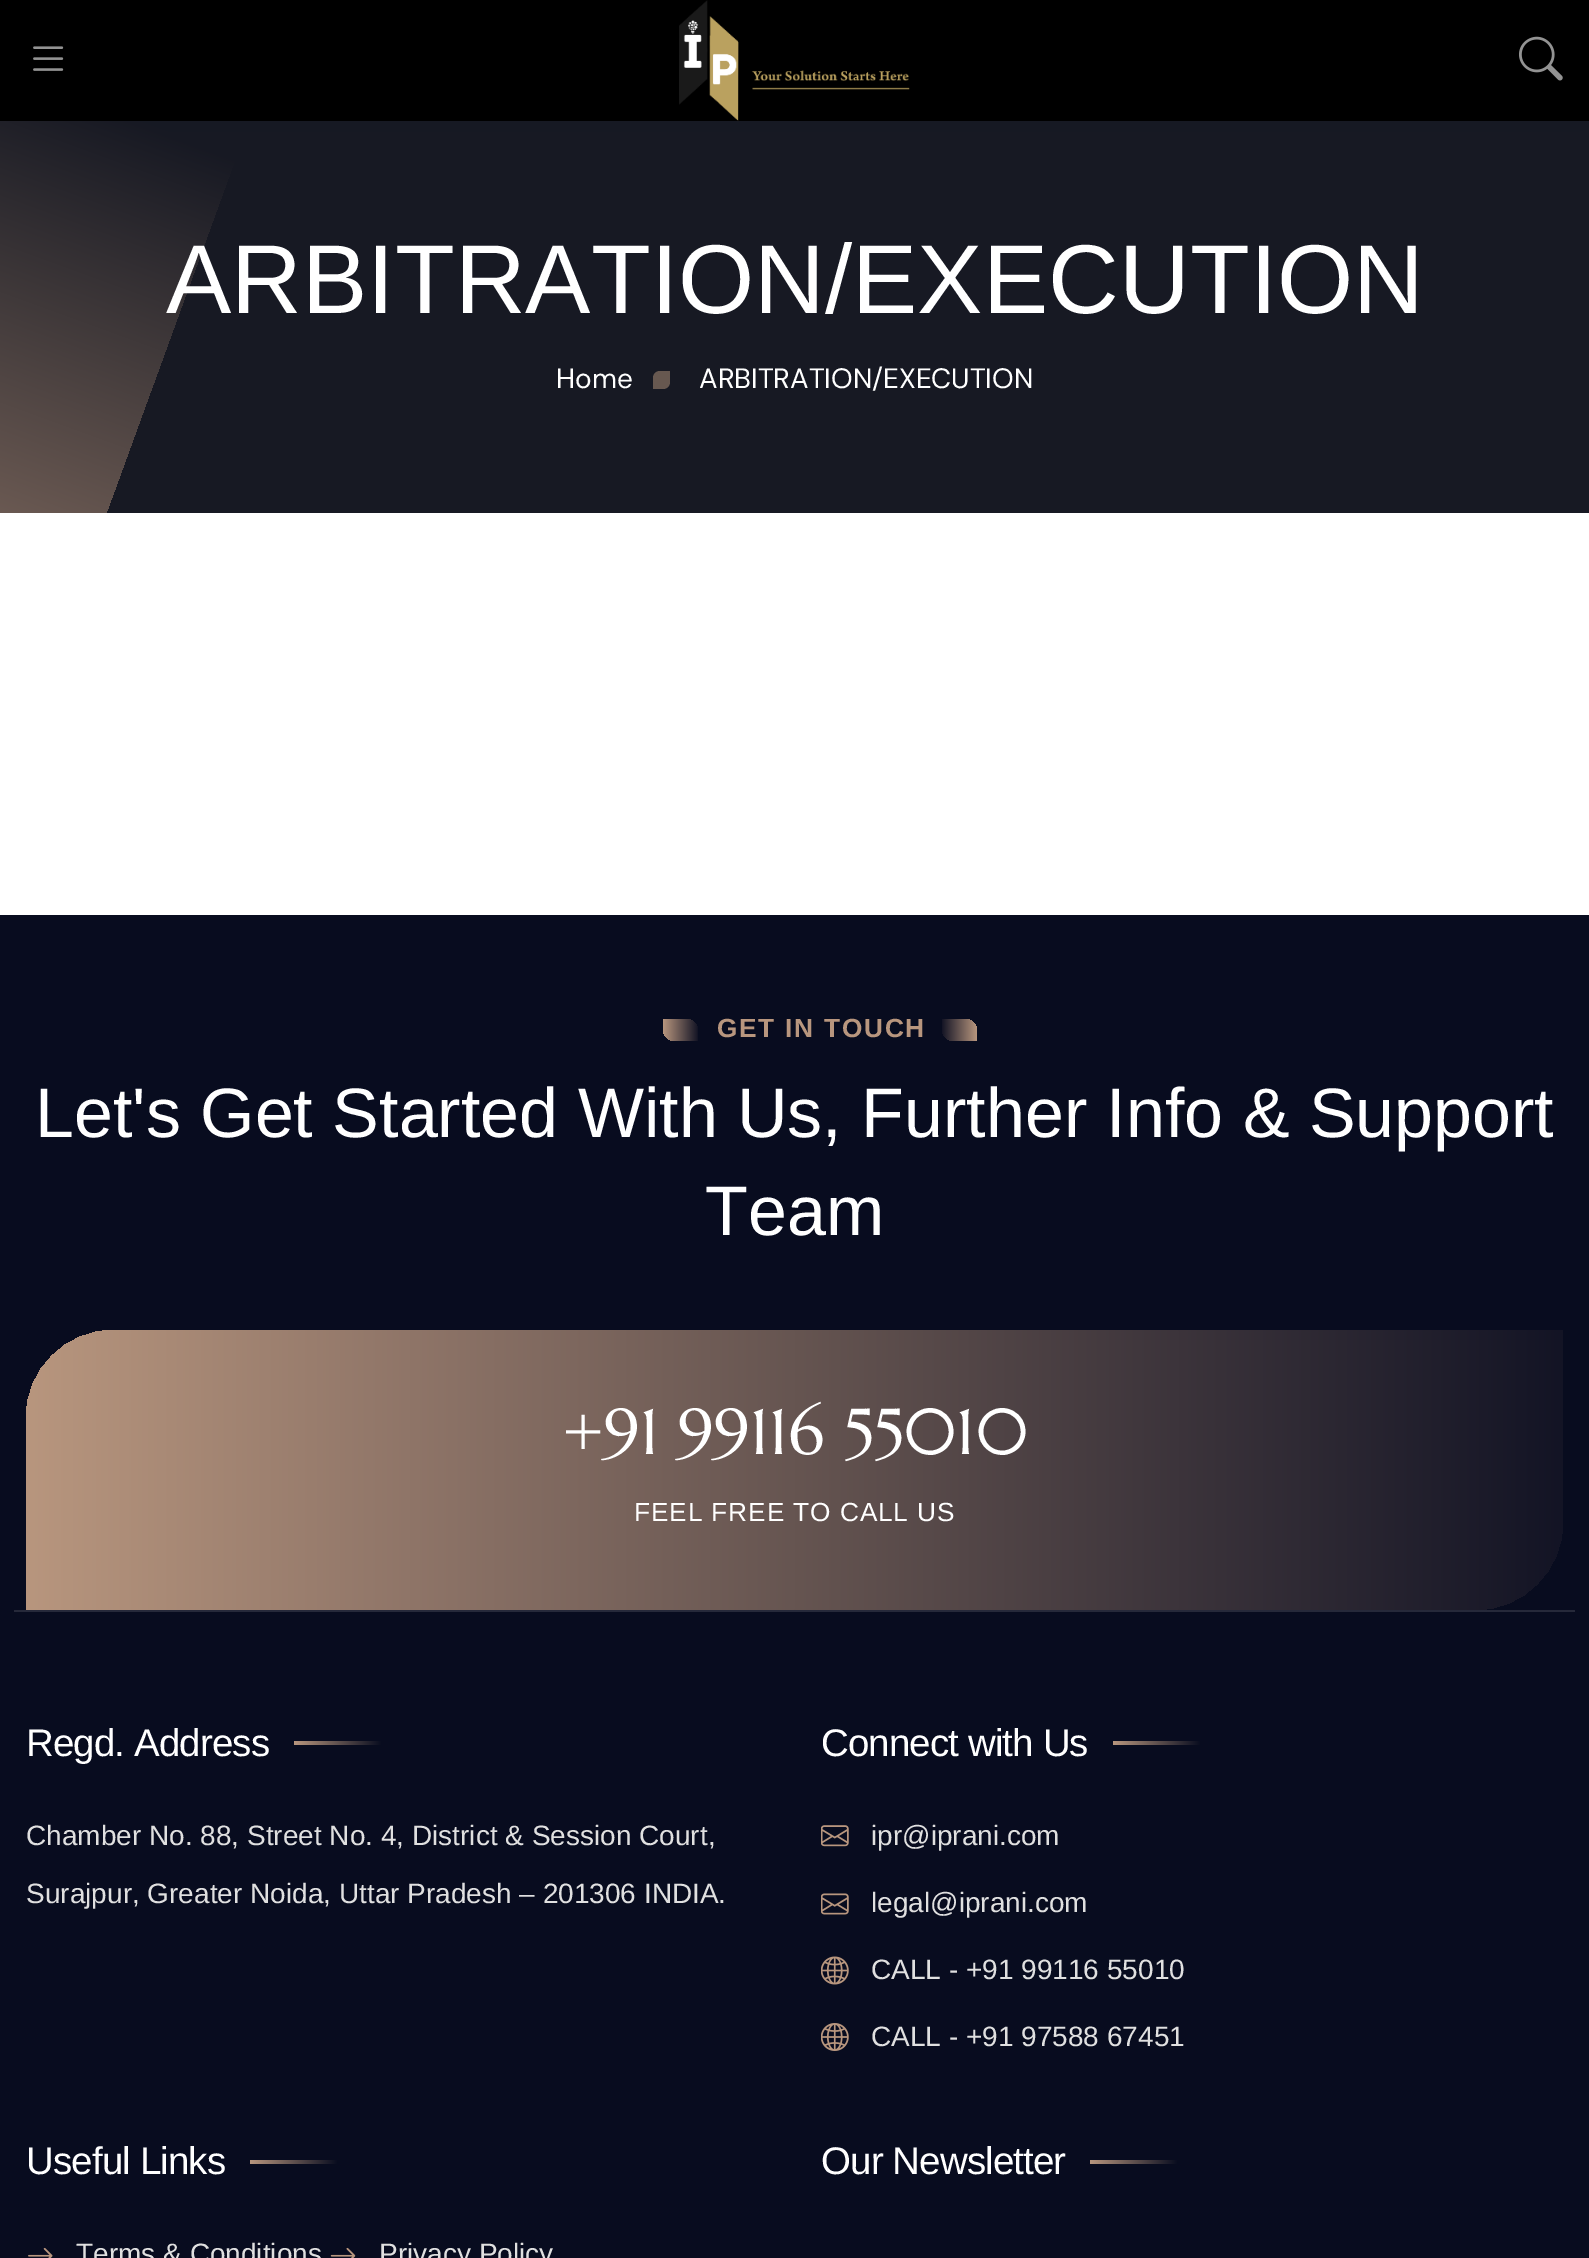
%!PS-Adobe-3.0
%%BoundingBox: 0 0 1589 2258
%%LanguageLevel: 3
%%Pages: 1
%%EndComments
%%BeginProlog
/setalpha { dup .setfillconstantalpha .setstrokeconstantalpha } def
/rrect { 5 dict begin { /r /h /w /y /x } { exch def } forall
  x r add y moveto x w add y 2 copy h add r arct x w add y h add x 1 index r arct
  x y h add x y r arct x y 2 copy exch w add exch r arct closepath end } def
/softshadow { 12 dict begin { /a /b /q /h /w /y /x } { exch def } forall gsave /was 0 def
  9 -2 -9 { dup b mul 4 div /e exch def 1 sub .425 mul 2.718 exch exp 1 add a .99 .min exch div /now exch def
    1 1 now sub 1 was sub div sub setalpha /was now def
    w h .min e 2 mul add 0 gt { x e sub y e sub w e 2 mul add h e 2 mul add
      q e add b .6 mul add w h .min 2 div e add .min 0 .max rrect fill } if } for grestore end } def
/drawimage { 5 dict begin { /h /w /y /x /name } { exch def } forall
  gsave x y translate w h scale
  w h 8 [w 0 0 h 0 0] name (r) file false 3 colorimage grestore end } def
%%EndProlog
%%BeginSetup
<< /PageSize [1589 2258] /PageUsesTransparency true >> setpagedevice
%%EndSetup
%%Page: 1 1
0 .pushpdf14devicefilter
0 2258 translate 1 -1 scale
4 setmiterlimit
1 setgray
0 0 1589 2258 rectfill
0 setgray
2 2 1585 117 0 17.5 0.1 softshadow
0 0 1589 121 rectfill
(images/1.raw) 33 46 31 25 drawimage
(images/2.raw) 679 0 231 121 drawimage
(images/3.raw) 1519 36 44 45 drawimage
0.75 setalpha
0.071 0.055 0.208 setrgbcolor
106 121 1483 392 rectfill
0.92 setalpha
0.071 0.082 0.114 setrgbcolor
106 121 1483 392 rectfill
gsave
0 121 1589 392 rectclip
1 setalpha
gsave newpath 5 73 moveto 236 157 lineto 68 618 lineto -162 534 lineto closepath clip newpath
<< /ShadingType 2 /ColorSpace /DeviceRGB /Coords [-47 576 121 115] /Extend [true true] /Function << /FunctionType 2 /Domain [0 1] /C0 [0.475 0.396 0.353] /C1 [0.09 0.098 0.137] /N 1 >> >> shfill grestore
grestore
1 setalpha
0.404 0.345 0.314 setrgbcolor
newpath 660 371 moveto 670 371 lineto 670 382 lineto 670 386 667 389 663 389 curveto 653 389 lineto 653 378 lineto 653 374 656 371 660 371 curveto closepath fill
0.031 0.047 0.122 setrgbcolor
0 915 1589 1343 rectfill
0.149 0.161 0.227 setrgbcolor
14 1610 1561 2 rectfill
gsave newpath 663 1019 moveto 686 1019 lineto 692.5 1019 698 1024.5 698 1031 curveto 698 1041 lineto 675 1041 lineto 668.5 1041 663 1035.5 663 1029 curveto closepath clip newpath
<< /ShadingType 2 /ColorSpace /DeviceRGB /Coords [663 1029 698 1029] /Extend [true true] /Function << /FunctionType 2 /Domain [0 1] /C0 [0.722 0.588 0.494] /C1 [0.075 0.078 0.145] /N 1 >> >> shfill grestore
gsave newpath 942 1019 moveto 965 1019 lineto 971.5 1019 977 1024.5 977 1031 curveto 977 1041 lineto 954 1041 lineto 947.5 1041 942 1035.5 942 1029 curveto closepath clip newpath
<< /ShadingType 2 /ColorSpace /DeviceRGB /Coords [977 1029 942 1029] /Extend [true true] /Function << /FunctionType 2 /Domain [0 1] /C0 [0.722 0.588 0.494] /C1 [0.075 0.078 0.145] /N 1 >> >> shfill grestore
gsave newpath 114 1330 moveto 1563 1330 lineto 1563 1522 lineto 1563 1570.5 1523.5 1610 1475 1610 curveto 26 1610 lineto 26 1418 lineto 26 1369.5 65.5 1330 114 1330 curveto closepath clip newpath
<< /ShadingType 2 /ColorSpace /DeviceRGB /Coords [26 1470 1563 1470] /Extend [true true] /Function << /FunctionType 2 /Domain [0 1] /C0 [0.722 0.588 0.494] /C1 [0.075 0.078 0.145] /N 1 >> >> shfill grestore
gsave 294 1741 88 4 2 rrect clip newpath
<< /ShadingType 2 /ColorSpace /DeviceRGB /Coords [294 1743 382 1743] /Extend [true true] /Function << /FunctionType 2 /Domain [0 1] /C0 [0.722 0.588 0.494] /C1 [0.031 0.047 0.122] /N 1 >> >> shfill grestore
gsave 1113 1741 88 4 2 rrect clip newpath
<< /ShadingType 2 /ColorSpace /DeviceRGB /Coords [1113 1743 1201 1743] /Extend [true true] /Function << /FunctionType 2 /Domain [0 1] /C0 [0.722 0.588 0.494] /C1 [0.031 0.047 0.122] /N 1 >> >> shfill grestore
(images/4.raw) 821 1825 28 22 drawimage
(images/5.raw) 821 1893 28 22 drawimage
(images/6.raw) 821 1956 28 29 drawimage
(images/7.raw) 821 2023 28 28 drawimage
gsave 250 2160 88 4 2 rrect clip newpath
<< /ShadingType 2 /ColorSpace /DeviceRGB /Coords [250 2161 338 2161] /Extend [true true] /Function << /FunctionType 2 /Domain [0 1] /C0 [0.722 0.588 0.494] /C1 [0.031 0.047 0.122] /N 1 >> >> shfill grestore
(images/8.raw) 28 2247 25 11 drawimage
(images/9.raw) 330 2247 26 11 drawimage
gsave 1090 2160 88 4 2 rrect clip newpath
<< /ShadingType 2 /ColorSpace /DeviceRGB /Coords [1090 2161 1178 2161] /Extend [true true] /Function << /FunctionType 2 /Domain [0 1] /C0 [0.722 0.588 0.494] /C1 [0.031 0.047 0.122] /N 1 >> >> shfill grestore
/LiberationSans-Regular [98 0 0 -98 0 0] selectfont
1 setgray
166 313 moveto (ARBITRATION/EXECUTION) show
/DMSans-Regular [28 0 0 -28 0 0] selectfont
556 388 moveto (Home) show
699 388 moveto (ARBITRATION/EXECUTION) show
/LiberationSans-Bold [26.25 0 0 -26.25 0 0] selectfont
0.722 0.588 0.494 setrgbcolor
717 1037 moveto 1.75 0 (GET IN TOUCH) ashow
/LiberationSans-Regular [70 0 0 -70 0 0] selectfont
1 setgray
35 1137 moveto (Let's Get Started With Us, Further Info & Support) show
705 1235 moveto (Team) show
/Marcellus-Regular [64.75 0 0 -64.75 0 0] selectfont
562 1454 moveto (+91 99116 55010) show
/LiberationSans-Regular [26.25 0 0 -26.25 0 0] selectfont
634 1521 moveto 0.9 0 (FEEL FREE TO CALL US) ashow
/LiberationSans-Regular [38.5 0 0 -38.5 0 0] selectfont
26 1756 moveto -0.9 0 (Regd. Address) ashow
/LiberationSans-Regular [28 0 0 -28 0 0] selectfont
0.878 setgray
26 1845 moveto (Chamber No. 88, Street No. 4, District & Session Court,) show
26 1903 moveto (Surajpur, Greater Noida, Uttar Pradesh – 201306 INDIA.) show
/LiberationSans-Regular [38.5 0 0 -38.5 0 0] selectfont
1 setgray
821 1756 moveto -0.9 0 (Connect with Us) ashow
/LiberationSans-Regular [28 0 0 -28 0 0] selectfont
0.878 setgray
871 1845 moveto (ipr@iprani.com) show
871 1912 moveto (legal@iprani.com) show
871 1979 moveto (CALL - +91 99116 55010) show
871 2046 moveto (CALL - +91 97588 67451) show
/LiberationSans-Regular [38.5 0 0 -38.5 0 0] selectfont
1 setgray
26 2174 moveto -0.9 0 (Useful Links) ashow
/LiberationSans-Regular [28 0 0 -28 0 0] selectfont
0.878 setgray
76 2263 moveto (Terms & Conditions) show
379 2263 moveto (Privacy Policy) show
/LiberationSans-Regular [38.5 0 0 -38.5 0 0] selectfont
1 setgray
821 2174 moveto -0.9 0 (Our Newsletter) ashow
.poppdf14devicefilter showpage
%%EOF
